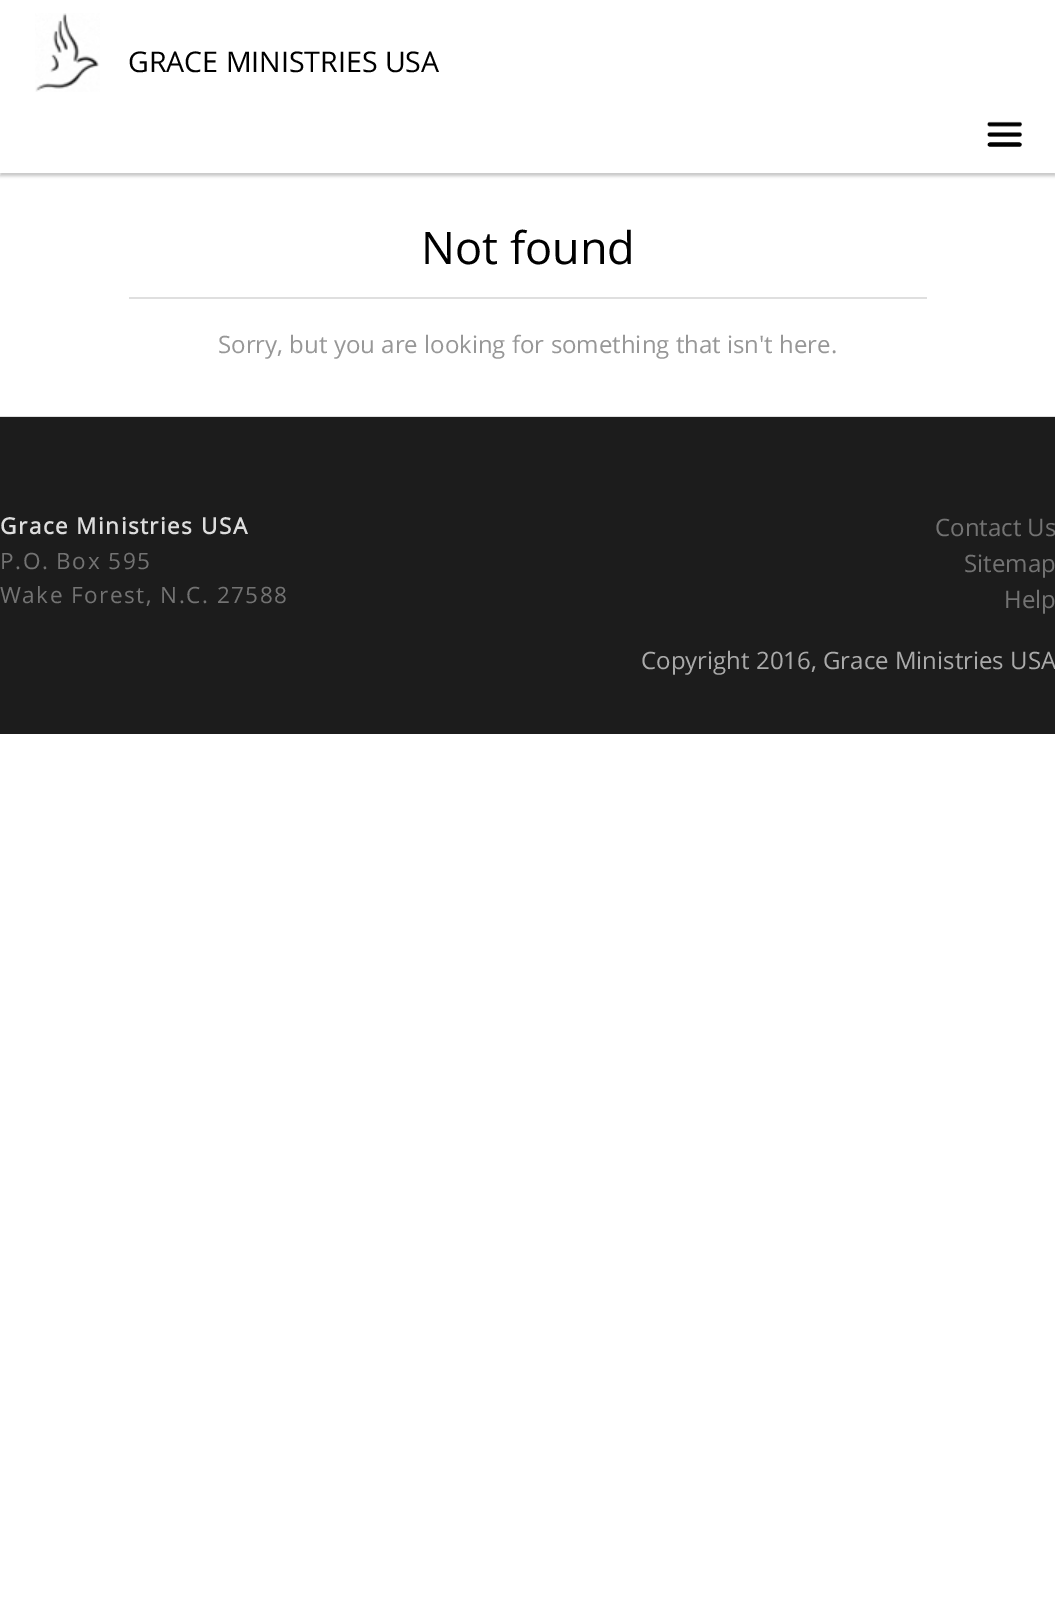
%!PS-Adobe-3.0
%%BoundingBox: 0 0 1055 1619
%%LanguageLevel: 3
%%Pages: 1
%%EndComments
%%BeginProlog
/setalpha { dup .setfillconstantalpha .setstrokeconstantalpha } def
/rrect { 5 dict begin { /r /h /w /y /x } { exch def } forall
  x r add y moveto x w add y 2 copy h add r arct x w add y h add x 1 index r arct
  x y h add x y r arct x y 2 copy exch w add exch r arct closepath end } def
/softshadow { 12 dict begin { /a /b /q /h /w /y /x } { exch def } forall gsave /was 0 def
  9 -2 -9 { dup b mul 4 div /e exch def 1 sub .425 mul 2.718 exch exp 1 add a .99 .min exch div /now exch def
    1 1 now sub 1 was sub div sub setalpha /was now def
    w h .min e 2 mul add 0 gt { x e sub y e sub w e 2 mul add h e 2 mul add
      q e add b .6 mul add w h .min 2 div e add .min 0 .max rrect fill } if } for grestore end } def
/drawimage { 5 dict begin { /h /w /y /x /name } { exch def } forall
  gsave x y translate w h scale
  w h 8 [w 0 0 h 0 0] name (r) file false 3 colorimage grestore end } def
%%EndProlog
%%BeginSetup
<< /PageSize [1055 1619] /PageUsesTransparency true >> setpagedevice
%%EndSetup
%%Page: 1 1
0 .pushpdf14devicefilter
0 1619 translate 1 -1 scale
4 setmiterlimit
1 setgray
0 0 1055 1619 rectfill
gsave
newpath 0 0 moveto 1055 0 lineto 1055 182 lineto 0 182 lineto closepath 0 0 moveto 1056 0 lineto 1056 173 lineto 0 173 lineto closepath eoclip newpath
0.714 setgray
0 3 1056 173 0 1.5 0.75 softshadow
grestore
(images/1.raw) 35 13 65 79 drawimage
(images/2.raw) 987 121 35 26 drawimage
0.875 setgray
0 416 1055 1 rectfill
129 297 798 2 rectfill
0.11 setgray
0 417 1055 317 rectfill
/OpenSans-Regular [28.5 0 0 -28.5 0 0] selectfont
0 setgray
128 72 moveto (GRACE MINISTRIES USA) show
/OpenSans-Regular [45 0 0 -45 0 0] selectfont
421 264 moveto (Not found) show
/OpenSans-Regular [24 0 0 -24 0 0] selectfont
0.592 setgray
218 353 moveto (Sorry, but you are looking for something that isn't here.) show
/OpenSans-Bold [22.5 0 0 -22.5 0 0] selectfont
0.867 setgray
0 534 moveto 1.5 0 (Grace Ministries USA) ashow
/OpenSans-Regular [22.5 0 0 -22.5 0 0] selectfont
0.451 setgray
0 569 moveto 1.5 0 (P.O. Box 595) ashow
0 603 moveto 1.5 0 (Wake Forest, N.C. 27588) ashow
/OpenSans-Regular [24 0 0 -24 0 0] selectfont
935 536 moveto (Contact Us) show
964 572 moveto (Sitemap) show
1004 608 moveto (Help) show
0.667 setgray
641 669 moveto (Copyright 2016, Grace Ministries USA) show
.poppdf14devicefilter showpage
%%EOF
